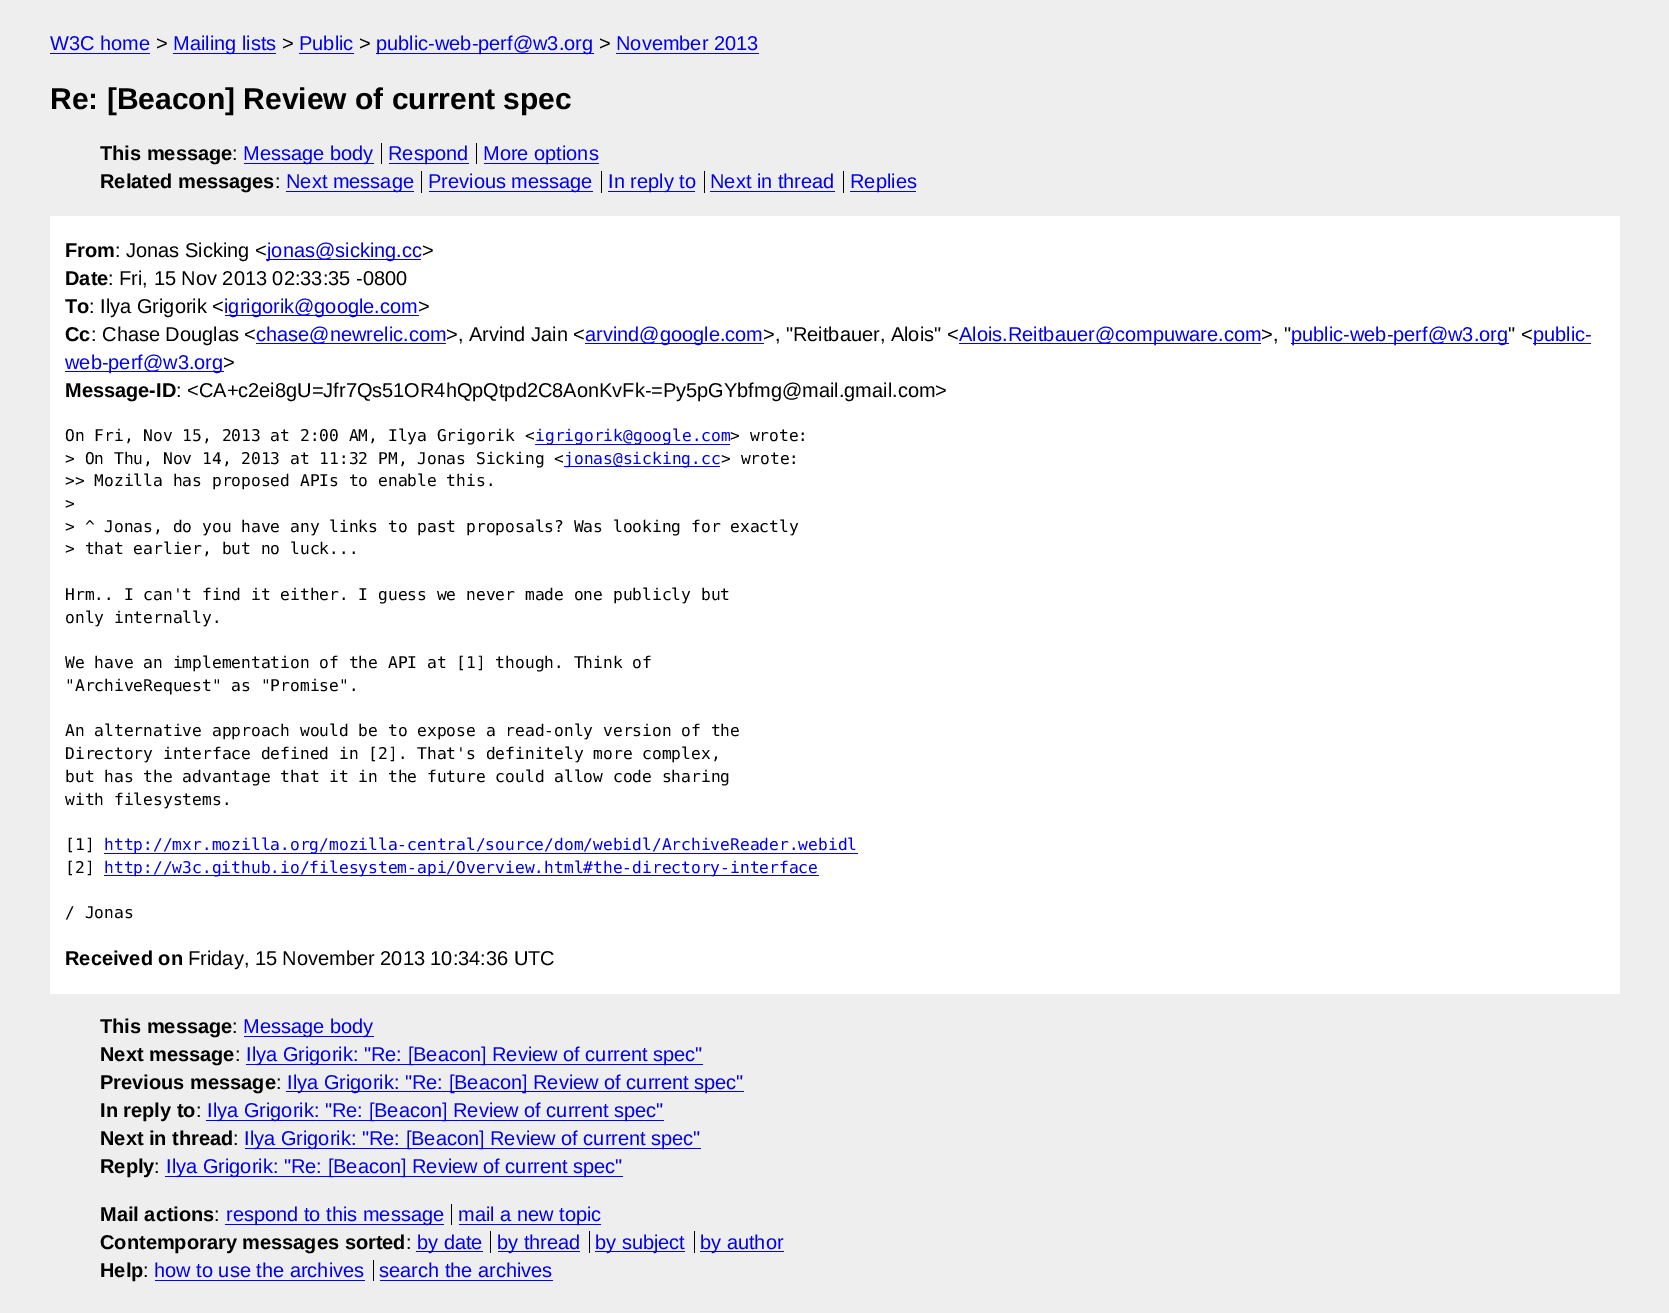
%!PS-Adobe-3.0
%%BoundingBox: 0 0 1669 1313
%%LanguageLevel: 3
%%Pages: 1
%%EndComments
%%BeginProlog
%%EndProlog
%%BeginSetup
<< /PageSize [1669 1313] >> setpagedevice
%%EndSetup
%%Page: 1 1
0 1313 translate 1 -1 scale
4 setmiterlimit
0.933 setgray
0 0 1669 1313 rectfill
0 0 0.933 setrgbcolor
50 53 100 1 rectfill
173 53 103 1 rectfill
299 53 55 1 rectfill
376 53 218 1 rectfill
616 53 143 1 rectfill
0 setgray
381 143 1 21 rectfill
0 0 0.933 setrgbcolor
244 163 130 1 rectfill
389 163 80 1 rectfill
0 setgray
476 143 1 21 rectfill
0 0 0.933 setrgbcolor
484 163 115 1 rectfill
286 191 128 1 rectfill
0 setgray
421 171 1 22 rectfill
0 0 0.933 setrgbcolor
429 191 164 1 rectfill
0 setgray
601 171 1 22 rectfill
0 0 0.933 setrgbcolor
608 191 87 1 rectfill
0 setgray
704 171 1 22 rectfill
0 0 0.933 setrgbcolor
710 191 125 1 rectfill
0 setgray
843 171 1 22 rectfill
0 0 0.933 setrgbcolor
850 191 66 1 rectfill
1 setgray
50 216 1570 778 rectfill
0 0 0.933 setrgbcolor
266 259 155 1 rectfill
225 315 194 1 rectfill
256 343 190 1 rectfill
585 343 179 1 rectfill
959 343 302 1 rectfill
1291 343 218 1 rectfill
1533 343 58 1 rectfill
65 371 159 1 rectfill
535 444 195 1 rectfill
564 466 156 1 rectfill
104 853 754 1 rectfill
104 875 715 1 rectfill
244 1036 130 1 rectfill
246 1064 457 1 rectfill
286 1091 458 1 rectfill
206 1120 458 1 rectfill
245 1148 456 1 rectfill
165 1176 458 1 rectfill
225 1224 219 1 rectfill
0 setgray
451 1204 1 21 rectfill
0 0 0.933 setrgbcolor
459 1224 142 1 rectfill
416 1251 67 1 rectfill
0 setgray
490 1231 1 22 rectfill
0 0 0.933 setrgbcolor
498 1251 82 1 rectfill
0 setgray
589 1231 1 22 rectfill
0 0 0.933 setrgbcolor
595 1251 90 1 rectfill
0 setgray
694 1231 1 22 rectfill
0 0 0.933 setrgbcolor
700 1251 84 1 rectfill
155 1280 210 1 rectfill
0 setgray
373 1260 1 21 rectfill
0 0 0.933 setrgbcolor
380 1280 173 1 rectfill
/LiberationSans-Regular [20 0 0 -20 0 0] selectfont
50 50 moveto (W3C home) show
0 setgray
156 50 moveto (>) show
0 0 0.933 setrgbcolor
173 50 moveto (Mailing lists) show
0 setgray
282 50 moveto (>) show
0 0 0.933 setrgbcolor
299 50 moveto (Public) show
0 setgray
359 50 moveto (>) show
0 0 0.933 setrgbcolor
376 50 moveto (public-web-perf@w3.org) show
0 setgray
599 50 moveto (>) show
0 0 0.933 setrgbcolor
616 50 moveto (November 2013) show
/LiberationSans-Bold [30 0 0 -30 0 0] selectfont
0 setgray
50 109 moveto (Re: [Beacon] Review of current spec) show
/LiberationSans-Bold [20 0 0 -20 0 0] selectfont
100 160 moveto (This message) show
/LiberationSans-Regular [20 0 0 -20 0 0] selectfont
232 160 moveto (:) show
0 0 0.933 setrgbcolor
243 160 moveto (Message body) show
388 160 moveto (Respond) show
483 160 moveto (More options) show
/LiberationSans-Bold [20 0 0 -20 0 0] selectfont
0 setgray
100 188 moveto (Related messages) show
/LiberationSans-Regular [20 0 0 -20 0 0] selectfont
275 188 moveto (:) show
0 0 0.933 setrgbcolor
286 188 moveto (Next message) show
428 188 moveto (Previous message) show
608 188 moveto (In reply to) show
710 188 moveto (Next in thread) show
850 188 moveto (Replies) show
/LiberationSans-Bold [20 0 0 -20 0 0] selectfont
0 setgray
65 257 moveto (From) show
/LiberationSans-Regular [20 0 0 -20 0 0] selectfont
115 257 moveto (: Jonas Sicking <) show
0 0 0.933 setrgbcolor
267 257 moveto (jonas@sicking.cc) show
0 setgray
422 257 moveto (>) show
/LiberationSans-Bold [20 0 0 -20 0 0] selectfont
65 285 moveto (Date) show
/LiberationSans-Regular [20 0 0 -20 0 0] selectfont
108 285 moveto (: Fri, 15 Nov 2013 02:33:35 -0800) show
/LiberationSans-Bold [20 0 0 -20 0 0] selectfont
65 313 moveto (To) show
/LiberationSans-Regular [20 0 0 -20 0 0] selectfont
89 313 moveto (: Ilya Grigorik <) show
0 0 0.933 setrgbcolor
224 313 moveto (igrigorik@google.com) show
0 setgray
418 313 moveto (>) show
/LiberationSans-Bold [20 0 0 -20 0 0] selectfont
65 341 moveto (Cc) show
/LiberationSans-Regular [20 0 0 -20 0 0] selectfont
91 341 moveto (: Chase Douglas <) show
0 0 0.933 setrgbcolor
256 341 moveto (chase@newrelic.com) show
0 setgray
446 341 moveto (>, Arvind Jain <) show
0 0 0.933 setrgbcolor
585 341 moveto (arvind@google.com) show
0 setgray
763 341 moveto (>, "Reitbauer, Alois" <) show
0 0 0.933 setrgbcolor
959 341 moveto (Alois.Reitbauer@compuware.com) show
0 setgray
1261 341 moveto (>, ") show
0 0 0.933 setrgbcolor
1291 341 moveto (public-web-perf@w3.org) show
0 setgray
1508 341 moveto (" <) show
0 0 0.933 setrgbcolor
1533 341 moveto (public-) show
65 369 moveto (web-perf@w3.org) show
0 setgray
223 369 moveto (>) show
/LiberationSans-Bold [20 0 0 -20 0 0] selectfont
65 397 moveto (Message-ID) show
/LiberationSans-Regular [20 0 0 -20 0 0] selectfont
176 397 moveto (: <CA+c2ei8gU=Jfr7Qs51OR4hQpQtpd2C8AonKvFk-=Py5pGYbfmg@mail.gmail.com>) show
/DejaVuSansMono-Regular [16.25 0 0 -16.25 0 0] selectfont
65 441 moveto (On Fri, Nov 15, 2013 at 2:00 AM, Ilya Grigorik <) show
0 0 0.933 setrgbcolor
535 441 moveto (igrigorik@google.com) show
0 setgray
730 441 moveto (> wrote:) show
65 464 moveto (> On Thu, Nov 14, 2013 at 11:32 PM, Jonas Sicking <) show
0 0 0.933 setrgbcolor
564 464 moveto (jonas@sicking.cc) show
0 setgray
721 464 moveto (> wrote:) show
65 486 moveto (>> Mozilla has proposed APIs to enable this.) show
65 509 moveto (>) show
65 532 moveto (> ^ Jonas, do you have any links to past proposals? Was looking for exactly) show
65 554 moveto (> that earlier, but no luck...) show
65 600 moveto (Hrm.. I can't find it either. I guess we never made one publicly but) show
65 623 moveto (only internally.) show
65 668 moveto (We have an implementation of the API at [1] though. Think of) show
65 691 moveto ("ArchiveRequest" as "Promise".) show
65 736 moveto (An alternative approach would be to expose a read-only version of the) show
65 759 moveto (Directory interface defined in [2]. That's definitely more complex,) show
65 782 moveto (but has the advantage that it in the future could allow code sharing) show
65 805 moveto (with filesystems.) show
65 850 moveto ([1]) show
0 0 0.933 setrgbcolor
104 850 moveto (http://mxr.mozilla.org/mozilla-central/source/dom/webidl/ArchiveReader.webidl) show
0 setgray
65 873 moveto ([2]) show
0 0 0.933 setrgbcolor
104 873 moveto (http://w3c.github.io/filesystem-api/Overview.html#the-directory-interface) show
0 setgray
65 918 moveto (/ Jonas) show
/LiberationSans-Bold [20 0 0 -20 0 0] selectfont
65 965 moveto (Received on) show
/LiberationSans-Regular [20 0 0 -20 0 0] selectfont
188 965 moveto (Friday, 15 November 2013 10:34:36 UTC) show
/LiberationSans-Bold [20 0 0 -20 0 0] selectfont
100 1033 moveto (This message) show
/LiberationSans-Regular [20 0 0 -20 0 0] selectfont
232 1033 moveto (:) show
0 0 0.933 setrgbcolor
243 1033 moveto (Message body) show
/LiberationSans-Bold [20 0 0 -20 0 0] selectfont
0 setgray
100 1061 moveto (Next message) show
/LiberationSans-Regular [20 0 0 -20 0 0] selectfont
235 1061 moveto (:) show
0 0 0.933 setrgbcolor
246 1061 moveto (Ilya Grigorik: "Re: [Beacon] Review of current spec") show
/LiberationSans-Bold [20 0 0 -20 0 0] selectfont
0 setgray
100 1089 moveto (Previous message) show
/LiberationSans-Regular [20 0 0 -20 0 0] selectfont
276 1089 moveto (:) show
0 0 0.933 setrgbcolor
287 1089 moveto (Ilya Grigorik: "Re: [Beacon] Review of current spec") show
/LiberationSans-Bold [20 0 0 -20 0 0] selectfont
0 setgray
100 1117 moveto (In reply to) show
/LiberationSans-Regular [20 0 0 -20 0 0] selectfont
196 1117 moveto (:) show
0 0 0.933 setrgbcolor
207 1117 moveto (Ilya Grigorik: "Re: [Beacon] Review of current spec") show
/LiberationSans-Bold [20 0 0 -20 0 0] selectfont
0 setgray
100 1145 moveto (Next in thread) show
/LiberationSans-Regular [20 0 0 -20 0 0] selectfont
233 1145 moveto (:) show
0 0 0.933 setrgbcolor
244 1145 moveto (Ilya Grigorik: "Re: [Beacon] Review of current spec") show
/LiberationSans-Bold [20 0 0 -20 0 0] selectfont
0 setgray
100 1173 moveto (Reply) show
/LiberationSans-Regular [20 0 0 -20 0 0] selectfont
154 1173 moveto (:) show
0 0 0.933 setrgbcolor
166 1173 moveto (Ilya Grigorik: "Re: [Beacon] Review of current spec") show
/LiberationSans-Bold [20 0 0 -20 0 0] selectfont
0 setgray
100 1221 moveto (Mail actions) show
/LiberationSans-Regular [20 0 0 -20 0 0] selectfont
214 1221 moveto (:) show
0 0 0.933 setrgbcolor
226 1221 moveto (respond to this message) show
458 1221 moveto (mail a new topic) show
/LiberationSans-Bold [20 0 0 -20 0 0] selectfont
0 setgray
100 1249 moveto (Contemporary messages sorted) show
/LiberationSans-Regular [20 0 0 -20 0 0] selectfont
406 1249 moveto (:) show
0 0 0.933 setrgbcolor
417 1249 moveto (by date) show
497 1249 moveto (by thread) show
595 1249 moveto (by subject) show
700 1249 moveto (by author) show
/LiberationSans-Bold [20 0 0 -20 0 0] selectfont
0 setgray
100 1277 moveto (Help) show
/LiberationSans-Regular [20 0 0 -20 0 0] selectfont
143 1277 moveto (:) show
0 0 0.933 setrgbcolor
154 1277 moveto (how to use the archives) show
379 1277 moveto (search the archives) show
showpage
%%EOF
